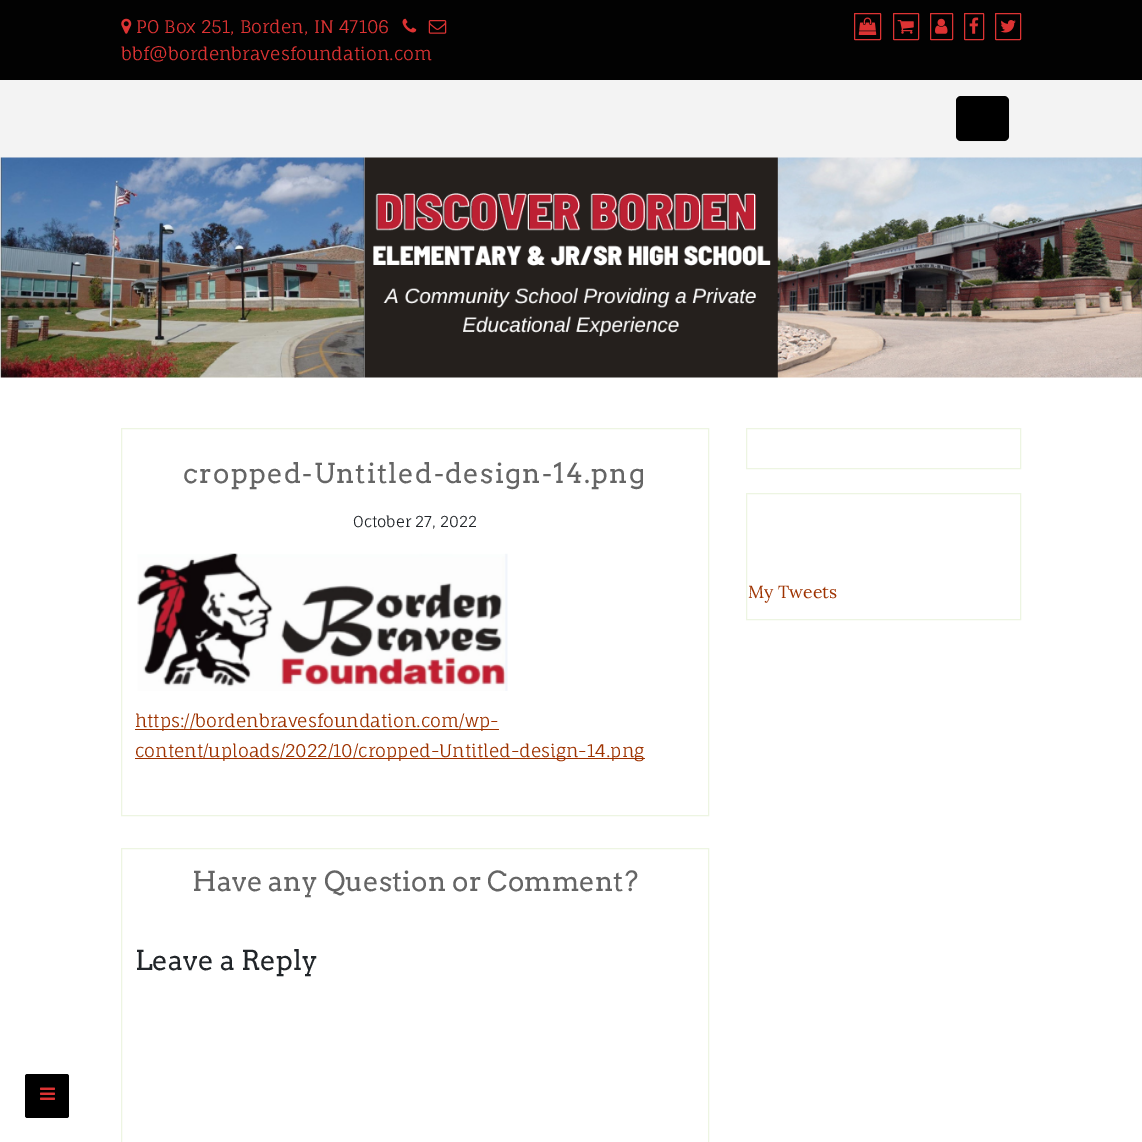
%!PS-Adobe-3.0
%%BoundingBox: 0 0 1142 1142
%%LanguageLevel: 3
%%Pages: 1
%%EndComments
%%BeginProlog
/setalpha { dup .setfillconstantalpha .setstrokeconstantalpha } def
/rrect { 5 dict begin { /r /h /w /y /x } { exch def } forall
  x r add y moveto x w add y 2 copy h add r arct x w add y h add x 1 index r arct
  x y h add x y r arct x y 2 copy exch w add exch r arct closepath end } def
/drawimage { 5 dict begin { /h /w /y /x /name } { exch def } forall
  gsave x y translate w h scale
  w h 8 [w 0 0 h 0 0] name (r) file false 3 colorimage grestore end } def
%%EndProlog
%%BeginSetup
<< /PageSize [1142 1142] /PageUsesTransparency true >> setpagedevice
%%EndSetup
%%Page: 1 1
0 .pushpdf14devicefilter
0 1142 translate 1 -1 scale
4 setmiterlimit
1 setgray
0 0 1142 1142 rectfill
0.008 setgray
0 0 1142 80 rectfill
(images/1.raw) 121 18 11 16 drawimage
(images/2.raw) 402 18 15 15 drawimage
(images/3.raw) 428 20 19 14 drawimage
0.867 0.2 0.2 setrgbcolor
854.5 13.5 26 26 0.5 rrect stroke
(images/4.raw) 858 17 19 18 drawimage
893.5 13.5 25 26 0.5 rrect stroke
(images/5.raw) 897 20 17 14 drawimage
930.5 13.5 22 26 0.5 rrect stroke
(images/6.raw) 935 18 13 16 drawimage
964.5 13.5 19 26 0.5 rrect stroke
(images/7.raw) 969 17 10 17 drawimage
995.5 13.5 25 26 0.5 rrect stroke
(images/8.raw) 1000 20 16 13 drawimage
0.953 setgray
0 80 1142 78 rectfill
0 setgray
956 96 53 45 5 rrect fill
0.1 setalpha
956.5 96.5 52 44 4.5 rrect stroke
1 setalpha
(images/9.raw) 0 157 1142 221 drawimage
0.929 0.961 0.886 setrgbcolor
121.5 428.5 587 387 rectstroke
(images/10.raw) 137 553 371 138 drawimage
0.62 0.196 0 setrgbcolor
135 729 364 1 rectfill
135 758 510 1 rectfill
0.929 0.961 0.886 setrgbcolor
121.5 848.5 587 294 rectstroke
746.5 428.5 274 40 rectstroke
746.5 493.5 274 126 rectstroke
0 setgray
25 1074 44 44 2.5 rrect fill
(images/11.raw) 40 1087 15 13 drawimage
/FaunaOne-Regular [17.5 0 0 -17.5 0 0] selectfont
0.867 0.2 0.2 setrgbcolor
136 33 moveto (PO Box 251, Borden, IN 47106) show
121 60 moveto (bbf@bordenbravesfoundation.com) show
/Arvo-Regular [27.5 0 0 -27.5 0 0] selectfont
0.396 setgray
183 483 moveto 1.25 0 (cropped-Untitled-design-14.png) ashow
/FaunaOne-Regular [15 0 0 -15 0 0] selectfont
0.129 0.145 0.161 setrgbcolor
353 527 moveto (October 27, 2022) show
/FaunaOne-Regular [17.5 0 0 -17.5 0 0] selectfont
0.62 0.196 0 setrgbcolor
135 727 moveto (https://bordenbravesfoundation.com/wp-) show
135 757 moveto (content/uploads/2022/10/cropped-Untitled-design-14.png) show
/Arvo-Regular [27.5 0 0 -27.5 0 0] selectfont
0.396 setgray
192 891 moveto (Have any Question or Comment?) show
0.129 0.145 0.161 setrgbcolor
135 970 moveto (Leave a Reply) show
/Lora-Regular [17.5 0 0 -17.5 0 0] selectfont
0.62 0.196 0 setrgbcolor
748 598 moveto (My Tweets) show
.poppdf14devicefilter showpage
%%EOF
